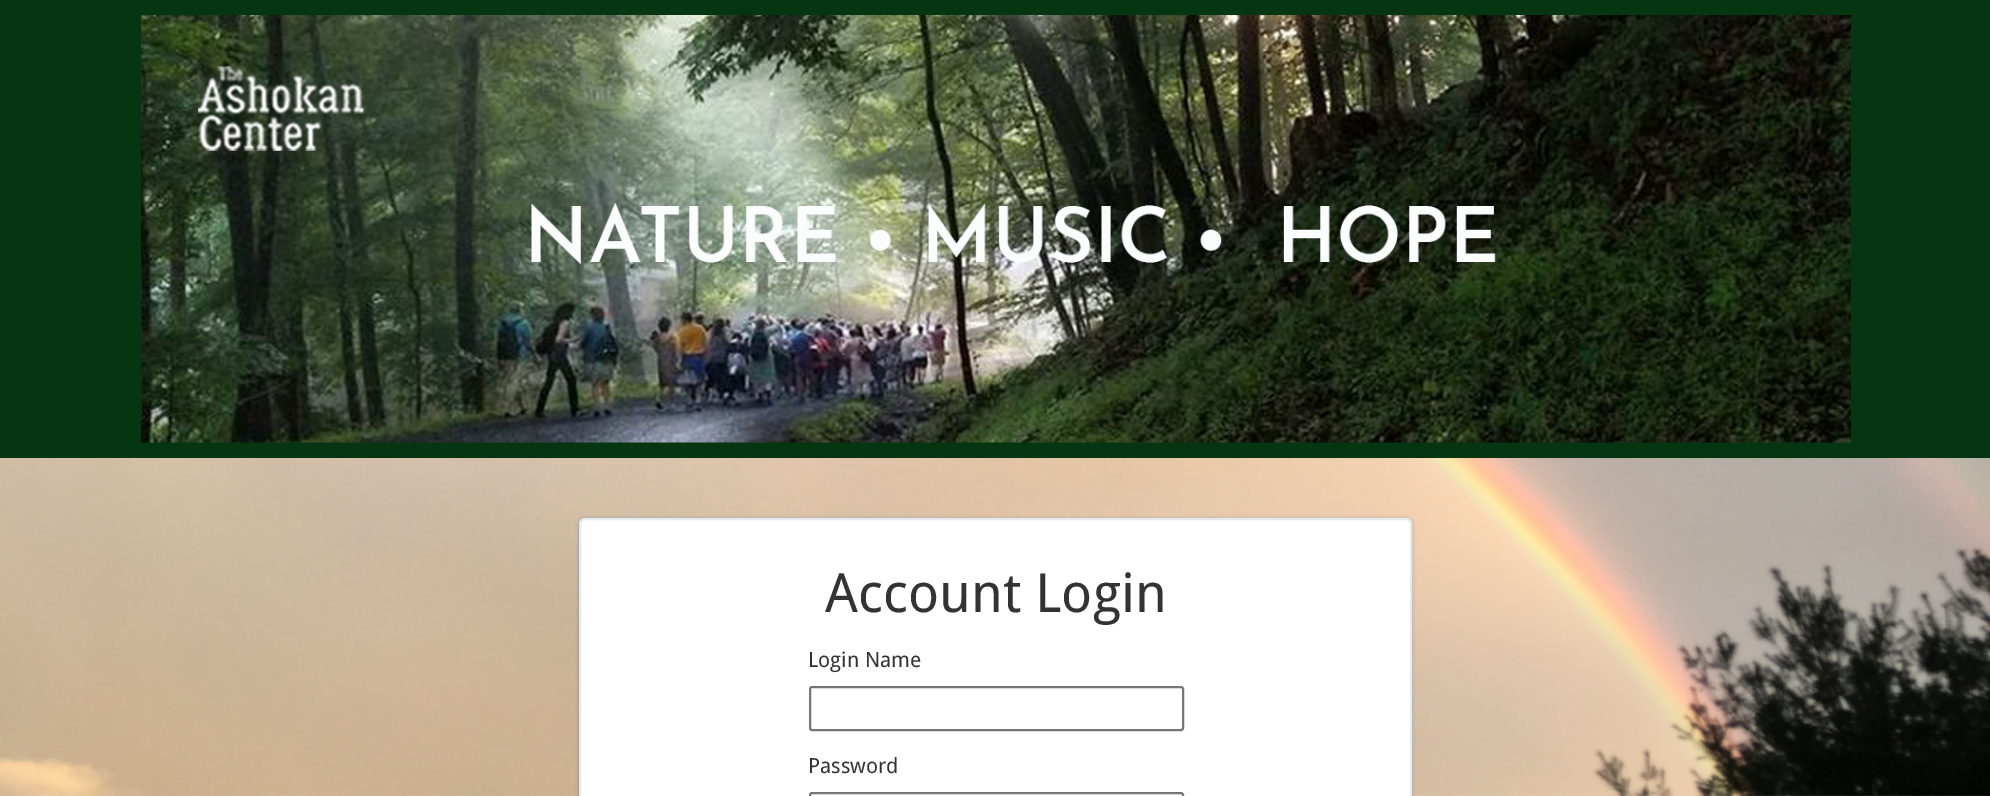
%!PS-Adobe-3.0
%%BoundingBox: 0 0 1990 796
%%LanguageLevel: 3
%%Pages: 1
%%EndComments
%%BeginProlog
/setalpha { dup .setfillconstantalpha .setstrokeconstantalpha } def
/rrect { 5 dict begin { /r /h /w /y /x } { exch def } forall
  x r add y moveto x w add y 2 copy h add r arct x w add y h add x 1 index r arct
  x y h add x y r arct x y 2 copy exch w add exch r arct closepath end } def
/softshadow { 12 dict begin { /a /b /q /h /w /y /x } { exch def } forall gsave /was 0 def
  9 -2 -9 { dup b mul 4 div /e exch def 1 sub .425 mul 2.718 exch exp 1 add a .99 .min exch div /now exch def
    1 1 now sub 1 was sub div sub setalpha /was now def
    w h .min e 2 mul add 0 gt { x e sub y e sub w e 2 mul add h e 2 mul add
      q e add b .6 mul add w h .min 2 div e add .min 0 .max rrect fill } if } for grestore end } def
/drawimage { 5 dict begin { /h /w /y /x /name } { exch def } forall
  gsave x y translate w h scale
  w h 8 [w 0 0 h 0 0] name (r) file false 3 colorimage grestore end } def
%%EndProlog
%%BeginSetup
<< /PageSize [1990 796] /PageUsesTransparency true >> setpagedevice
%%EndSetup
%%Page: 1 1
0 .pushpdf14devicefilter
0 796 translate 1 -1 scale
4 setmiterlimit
1 setgray
0 0 1990 796 rectfill
(images/1.raw) 0 458 1990 338 drawimage
0.024 0.212 0.067 setrgbcolor
0 0 1990 458 rectfill
(images/2.raw) 141 15 1710 428 drawimage
0.184 0.286 0.459 setrgbcolor
579 519 833 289 6 2 0.2 softshadow
579 521 833 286 6 1.5 0.12 softshadow
579 518 833 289 6 1.5 0.14 softshadow
1 setgray
580 519 831 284 5 rrect gsave fill grestore
0.902 0.914 0.933 setrgbcolor
2 setlinewidth
stroke
0.463 setgray
810 687 373 43 2 rrect stroke
810 793 373 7 2 rrect stroke
/DroidSans-Regular [54 0 0 -54 0 0] selectfont
0.2 setgray
825 612 moveto (Account Login) show
/DroidSans-Regular [21 0 0 -21 0 0] selectfont
808 667 moveto (Login Name) show
808 773 moveto (Password) show
.poppdf14devicefilter showpage
%%EOF
